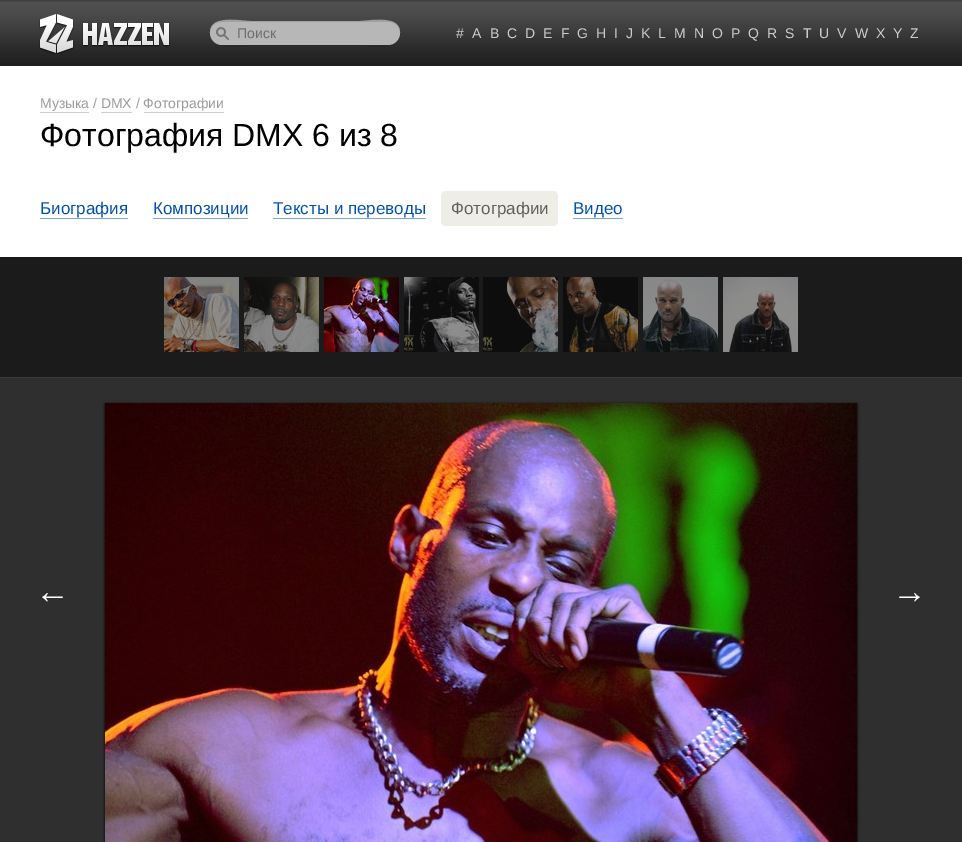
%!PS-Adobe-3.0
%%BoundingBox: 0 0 962 842
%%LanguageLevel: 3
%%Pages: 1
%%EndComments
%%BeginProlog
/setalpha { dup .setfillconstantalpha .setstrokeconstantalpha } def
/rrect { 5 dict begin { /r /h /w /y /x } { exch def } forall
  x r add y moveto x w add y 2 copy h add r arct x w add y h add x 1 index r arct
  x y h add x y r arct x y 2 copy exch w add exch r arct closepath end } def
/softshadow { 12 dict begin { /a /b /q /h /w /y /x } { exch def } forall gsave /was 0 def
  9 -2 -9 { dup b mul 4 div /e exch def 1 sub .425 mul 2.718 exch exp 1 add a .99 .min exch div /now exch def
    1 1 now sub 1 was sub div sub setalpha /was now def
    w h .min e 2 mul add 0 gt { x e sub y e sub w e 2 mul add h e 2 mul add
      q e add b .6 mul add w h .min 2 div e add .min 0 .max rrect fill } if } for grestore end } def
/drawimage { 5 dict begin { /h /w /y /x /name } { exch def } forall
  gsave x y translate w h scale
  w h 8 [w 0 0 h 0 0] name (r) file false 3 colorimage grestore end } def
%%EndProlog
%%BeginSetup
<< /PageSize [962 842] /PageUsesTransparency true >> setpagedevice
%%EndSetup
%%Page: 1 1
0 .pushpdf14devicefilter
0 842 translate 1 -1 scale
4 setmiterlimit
1 setgray
0 0 962 842 rectfill
(images/1.raw) 0 0 962 66 drawimage
(images/2.raw) 39 14 131 40 drawimage
0.161 setgray
newpath 210 33 moveto 209 53 242 46 250 46 curveto 360 46 lineto 368 46 401 53 400 33 curveto 400 40 394 45 388 45 curveto 222 45 lineto 216 45 210 40 210 33 curveto closepath fill
0.718 setgray
210 21 190 24 12 rrect fill
0.627 setgray
newpath 222 22 moveto 388 22 lineto 395 22 400 27 400 33 curveto 401 14 368 21 360 21 curveto 250 21 lineto 242 21 209 14 210 33 curveto 210 27 215 22 222 22 curveto closepath fill
(images/3.raw) 216 27 13 13 drawimage
0.804 setgray
40 112 49 1 rectfill
101 112 31 1 rectfill
144 112 80 1 rectfill
0.502 0.659 0.839 setrgbcolor
40 218 88 1 rectfill
153 218 95 1 rectfill
273 218 153 1 rectfill
0.933 0.929 0.902 setrgbcolor
441 191 117 35 5 rrect fill
0.502 0.659 0.839 setrgbcolor
573 218 50 1 rectfill
0.106 setgray
0 257 962 120 rectfill
0.231 setgray
0 377 962 1 rectfill
(images/4.raw) 164 277 75 75 drawimage
(images/5.raw) 244 277 75 75 drawimage
(images/6.raw) 324 277 75 75 drawimage
(images/7.raw) 404 277 75 75 drawimage
(images/8.raw) 483 277 75 75 drawimage
(images/9.raw) 563 277 75 75 drawimage
(images/10.raw) 643 277 75 75 drawimage
(images/11.raw) 723 277 75 75 drawimage
0.184 setgray
0 378 962 464 rectfill
0 setgray
105 404 752 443 0 1.5 1 softshadow
(images/12.raw) 105 403 752 439 drawimage
/LiberationSans-Regular [14 0 0 -14 0 0] selectfont
0.427 setgray
237 38 moveto (Поиск) show
0.8 setgray
456 38 moveto (#) show
472 38 moveto (A) show
490 38 moveto (B) show
507 38 moveto (C) show
525 38 moveto (D) show
543 38 moveto (E) show
561 38 moveto (F) show
577 38 moveto (G) show
596 38 moveto (H) show
614 38 moveto (I) show
626 38 moveto (J) show
641 38 moveto (K) show
658 38 moveto (L) show
674 38 moveto (M) show
694 38 moveto (N) show
712 38 moveto (O) show
731 38 moveto (P) show
748 38 moveto (Q) show
767 38 moveto (R) show
785 38 moveto (S) show
803 38 moveto (T) show
819 38 moveto (U) show
837 38 moveto (V) show
855 38 moveto (W) show
876 38 moveto (X) show
893 38 moveto (Y) show
910 38 moveto (Z) show
0.608 setgray
40 108 moveto (Музыка / DMX / Фотографии) show
/LiberationSans-Regular [32 0 0 -32 0 0] selectfont
0 setgray
40 146 moveto (Фотография DMX 6 из 8) show
/LiberationSans-Regular [17 0 0 -17 0 0] selectfont
0 0.318 0.675 setrgbcolor
40 214 moveto (Биография) show
153 214 moveto (Композиции) show
273 214 moveto (Тексты и переводы) show
0.373 0.373 0.361 setrgbcolor
451 214 moveto (Фотографии) show
0 0.318 0.675 setrgbcolor
573 214 moveto (Видео) show
/LiberationSans-Regular [35 0 0 -35 0 0] selectfont
1 setgray
35 603 moveto (←) show
892 603 moveto (→) show
.poppdf14devicefilter showpage
%%EOF
